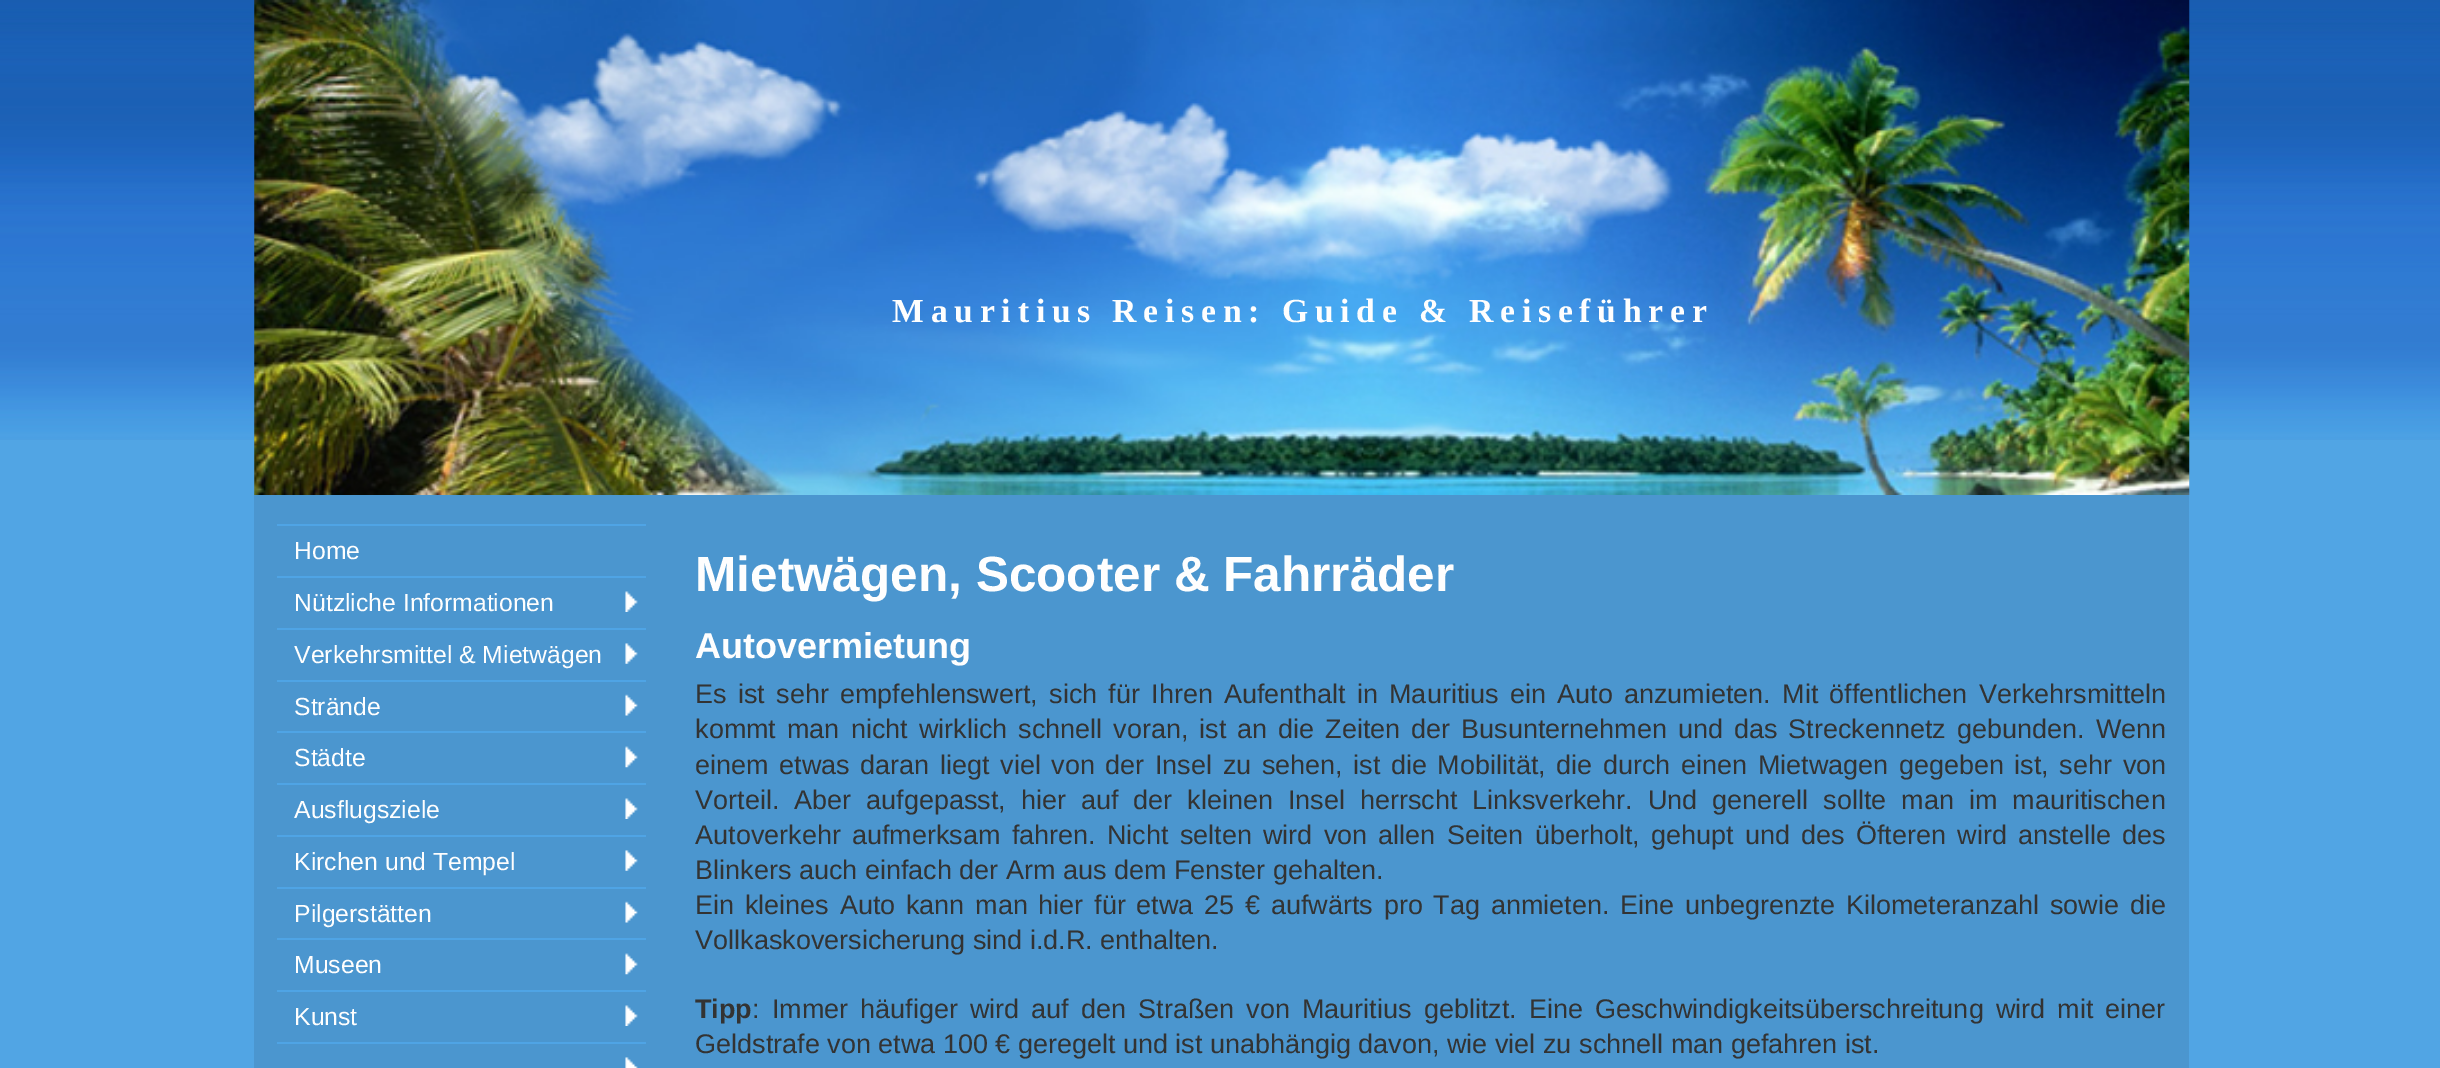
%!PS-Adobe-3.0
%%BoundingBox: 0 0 2440 1068
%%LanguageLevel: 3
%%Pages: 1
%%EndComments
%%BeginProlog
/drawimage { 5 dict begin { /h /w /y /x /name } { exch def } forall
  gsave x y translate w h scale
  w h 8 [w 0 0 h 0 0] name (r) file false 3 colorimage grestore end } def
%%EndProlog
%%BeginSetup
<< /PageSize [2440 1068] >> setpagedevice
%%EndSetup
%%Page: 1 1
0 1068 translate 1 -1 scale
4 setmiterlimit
0.318 0.647 0.894 setrgbcolor
0 0 2440 1068 rectfill
(images/1.raw) 0 0 2440 440 drawimage
(images/2.raw) 254 0 1936 495 drawimage
0.294 0.588 0.812 setrgbcolor
254 495 1935 573 rectfill
0.31 0.643 0.898 setrgbcolor
277 524 369 2 rectfill
277 576 369 2 rectfill
(images/3.raw) 625 591 13 21 drawimage
277 628 369 2 rectfill
(images/4.raw) 625 643 13 21 drawimage
277 680 369 2 rectfill
(images/5.raw) 625 694 13 22 drawimage
277 731 369 2 rectfill
(images/6.raw) 625 746 13 22 drawimage
277 783 369 2 rectfill
(images/3.raw) 625 798 13 21 drawimage
277 835 369 2 rectfill
(images/4.raw) 625 850 13 21 drawimage
277 887 369 2 rectfill
(images/5.raw) 625 901 13 22 drawimage
277 938 369 2 rectfill
(images/6.raw) 625 953 13 22 drawimage
277 990 369 2 rectfill
(images/3.raw) 625 1005 13 21 drawimage
277 1042 369 2 rectfill
(images/7.raw) 625 1057 13 11 drawimage
/LiberationSerif-Bold [33.75 0 0 -33.75 0 0] selectfont
0.996 setgray
892 322 moveto 6.75 0 (Mauritius Reisen: Guide & Reiseführer) ashow
/LiberationSans-Regular [24.75 0 0 -24.75 0 0] selectfont
294 559 moveto (Home) show
294 611 moveto (Nützliche Informationen) show
294 663 moveto (Verkehrsmittel & Mietwägen) show
294 715 moveto (Strände) show
294 766 moveto (Städte) show
294 818 moveto (Ausflugsziele) show
294 870 moveto (Kirchen und Tempel) show
294 922 moveto (Pilgerstätten) show
294 973 moveto (Museen) show
294 1025 moveto (Kunst) show
/LiberationSans-Bold [49.5 0 0 -49.5 0 0] selectfont
695 591 moveto (Mietwägen, Scooter & Fahrräder) show
/LiberationSans-Bold [36 0 0 -36 0 0] selectfont
695 658 moveto (Autovermietung) show
/LiberationSans-Regular [27 0 0 -27 0 0] selectfont
0.2 setgray
695 703 moveto 3.75 0 32 (Es ist sehr empfehlenswert, sich für Ihren Aufenthalt in Mauritius ein Auto anzumieten. Mit öffentlichen Verkehrsmitteln) widthshow
695 738 moveto 3.5 0 32 (kommt man nicht wirklich schnell voran, ist an die Zeiten der Busunternehmen und das Streckennetz gebunden. Wenn) widthshow
695 774 moveto 3.1 0 32 (einem etwas daran liegt viel von der Insel zu sehen, ist die Mobilität, die durch einen Mietwagen gegeben ist, sehr von) widthshow
695 809 moveto 7.5 0 32 (Vorteil. Aber aufgepasst, hier auf der kleinen Insel herrscht Linksverkehr. Und generell sollte man im mauritischen) widthshow
695 844 moveto 3.75 0 32 (Autoverkehr aufmerksam fahren. Nicht selten wird von allen Seiten überholt, gehupt und des Öfteren wird anstelle des) widthshow
695 879 moveto (Blinkers auch einfach der Arm aus dem Fenster gehalten.) show
695 914 moveto 3.25 0 32 (Ein kleines Auto kann man hier für etwa 25 € aufwärts pro Tag anmieten. Eine unbegrenzte Kilometeranzahl sowie die) widthshow
695 949 moveto (Vollkaskoversicherung sind i.d.R. enthalten.) show
/LiberationSans-Bold [27 0 0 -27 0 0] selectfont
695 1018 moveto (Tipp) show
/LiberationSans-Regular [27 0 0 -27 0 0] selectfont
752 1018 moveto 4.6 0 32 (: Immer häufiger wird auf den Straßen von Mauritius geblitzt. Eine Geschwindigkeitsüberschreitung wird mit einer) widthshow
695 1053 moveto (Geldstrafe von etwa 100 € geregelt und ist unabhängig davon, wie viel zu schnell man gefahren ist.) show
showpage
%%EOF
